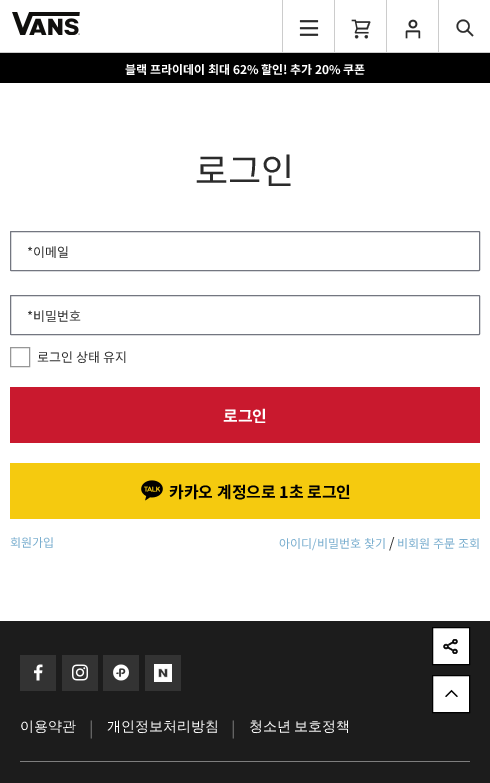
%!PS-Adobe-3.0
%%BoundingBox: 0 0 490 783
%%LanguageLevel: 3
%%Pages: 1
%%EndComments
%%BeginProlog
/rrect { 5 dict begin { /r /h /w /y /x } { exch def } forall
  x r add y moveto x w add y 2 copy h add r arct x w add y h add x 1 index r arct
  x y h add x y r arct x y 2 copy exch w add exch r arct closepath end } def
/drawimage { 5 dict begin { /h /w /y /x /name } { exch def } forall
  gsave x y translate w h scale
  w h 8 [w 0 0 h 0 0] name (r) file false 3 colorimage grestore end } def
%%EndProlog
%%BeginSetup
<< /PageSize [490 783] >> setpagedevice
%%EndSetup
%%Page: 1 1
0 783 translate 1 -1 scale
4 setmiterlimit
1 setgray
0 0 490 783 rectfill
0.8 setgray
0 52 490 1 rectfill
(images/1.raw) 12 12 68 23 drawimage
282 0 1 52 rectfill
(images/2.raw) 299 20 20 16 drawimage
334 0 1 52 rectfill
(images/3.raw) 351 19 20 20 drawimage
386 0 1 52 rectfill
(images/4.raw) 405 19 16 20 drawimage
438 0 1 52 rectfill
(images/5.raw) 456 19 18 18 drawimage
0 setgray
0 53 490 30 rectfill
0.451 0.463 0.502 setrgbcolor
10.5 231.5 469 39 0.5 rrect stroke
10.5 295.5 469 39 0.5 rrect stroke
0.592 setgray
10.5 347.5 19 19 rectstroke
0.788 0.098 0.18 setrgbcolor
10 387 470 56 rectfill
0.961 0.792 0.059 setrgbcolor
10 463 470 56 rectfill
(images/6.raw) 141 480 22 21 drawimage
0.11 setgray
0 621 490 162 rectfill
1 setgray
newpath 432.5 627.5 moveto 469.5 627.5 lineto 469.5 664.5 lineto 432.5 664.5 lineto closepath gsave fill grestore
0 setgray
stroke
(images/7.raw) 443 639 15 15 drawimage
1 setgray
newpath 432.5 675.5 moveto 469.5 675.5 lineto 469.5 712.5 lineto 432.5 712.5 lineto closepath gsave fill grestore
0 setgray
stroke
(images/8.raw) 445 689 13 8 drawimage
0.494 setgray
20 761 450 1 rectfill
0.2 setgray
20 655 36 36 rectfill
(images/9.raw) 34 664 9 17 drawimage
62 655 36 36 rectfill
(images/10.raw) 72 664 16 17 drawimage
103 655 36 36 rectfill
(images/11.raw) 113 664 16 17 drawimage
145 655 36 36 rectfill
(images/12.raw) 154 664 18 18 drawimage
/NotoSansKR-Bold [12 0 0 -12 0 0] selectfont
1 setgray
125 74 moveto (블랙 프라이데이 최대 62% 할인! 추가 20% 쿠폰) show
/NotoSansKR-Regular [36 0 0 -36 0 0] selectfont
0.169 setgray
195 184 moveto (로그인) show
/NotoSansKR-Regular [13 0 0 -13 0 0] selectfont
27 257 moveto (*이메일) show
27 321 moveto (*비밀번호) show
37 362 moveto (로그인 상태 유지) show
/NotoSansKR-Bold [16 0 0 -16 0 0] selectfont
1 setgray
223 422 moveto (로그인) show
0 setgray
169 498 moveto (카카오 계정으로 1초 로그인) show
/NotoSansKR-Regular [12 0 0 -12 0 0] selectfont
0.475 0.682 0.812 setrgbcolor
10 547 moveto (회원가입) show
279 548 moveto (아이디/비밀번호 찾기) show
/NotoSansKR-Regular [14 0 0 -14 0 0] selectfont
0.169 setgray
389 548 moveto (/) show
/NotoSansKR-Regular [12 0 0 -12 0 0] selectfont
0.475 0.682 0.812 setrgbcolor
397 548 moveto (비회원 주문 조회) show
/WenQuanYiZenHei-Medium [14 0 0 -14 0 0] selectfont
1 setgray
20 731 moveto (이용약관) show
/NotoSansKR-Regular [16 0 0 -16 0 0] selectfont
0.494 setgray
89 734 moveto (|) show
/WenQuanYiZenHei-Medium [14 0 0 -14 0 0] selectfont
1 setgray
107 731 moveto (개인정보처리방침) show
/NotoSansKR-Regular [16 0 0 -16 0 0] selectfont
0.494 setgray
231 734 moveto (|) show
/WenQuanYiZenHei-Medium [14 0 0 -14 0 0] selectfont
1 setgray
249 731 moveto -1 0 32 (청소년 보호정책) widthshow
showpage
%%EOF
